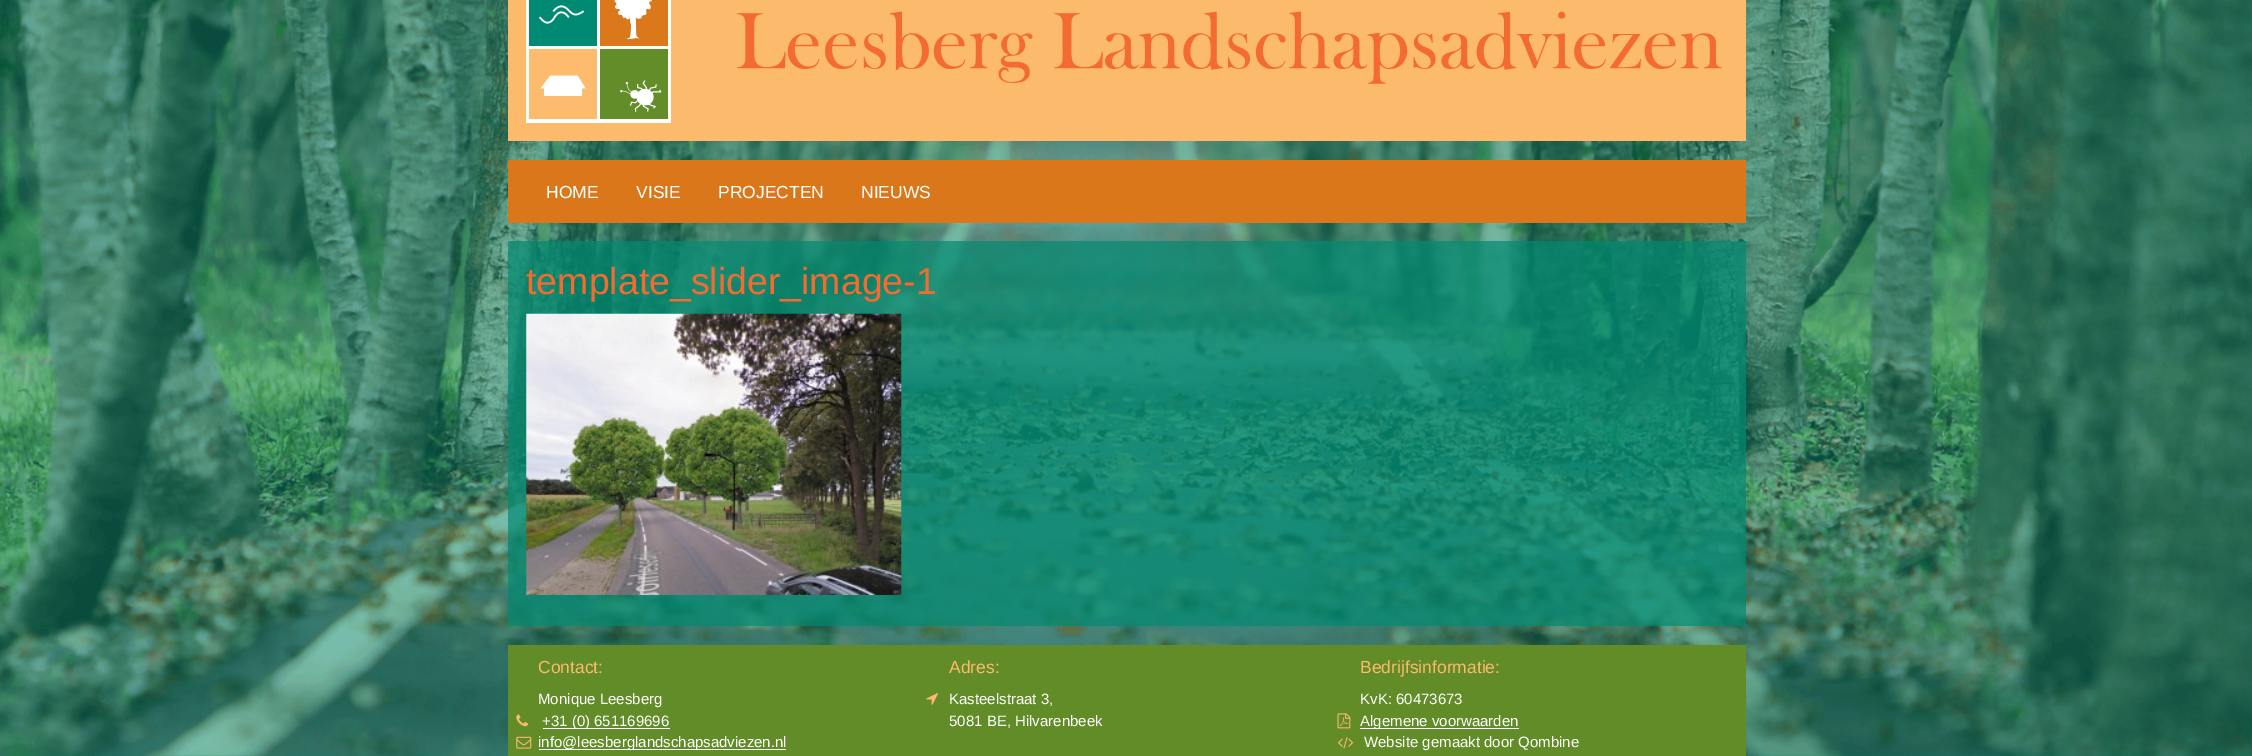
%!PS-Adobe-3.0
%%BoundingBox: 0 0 2252 756
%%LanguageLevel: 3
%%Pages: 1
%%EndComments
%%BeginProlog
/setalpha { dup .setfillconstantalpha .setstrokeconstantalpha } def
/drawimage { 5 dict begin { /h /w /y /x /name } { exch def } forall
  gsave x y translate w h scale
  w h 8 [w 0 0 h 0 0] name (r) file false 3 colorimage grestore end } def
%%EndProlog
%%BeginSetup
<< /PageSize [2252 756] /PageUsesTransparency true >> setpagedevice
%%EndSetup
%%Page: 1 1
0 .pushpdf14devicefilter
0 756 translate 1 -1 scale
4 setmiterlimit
0 0.541 0.447 setrgbcolor
0 0 2252 756 rectfill
(images/1.raw) 0 0 2252 756 drawimage
0.988 0.729 0.424 setrgbcolor
508 0 1238 141 rectfill
1 setgray
526 0 145 123 rectfill
(images/2.raw) 529 0 139 119 drawimage
(images/3.raw) 736 11 986 73 drawimage
0.855 0.467 0.106 setrgbcolor
508 160 1238 63 rectfill
0.7 setalpha
0 0.541 0.447 setrgbcolor
508 241 1238 385 rectfill
1 setalpha
(images/4.raw) 526 313 376 282 drawimage
0.38 0.549 0.157 setrgbcolor
508 645 1238 111 rectfill
(images/5.raw) 516 714 12 13 drawimage
1 setgray
543 728 127 1 rectfill
(images/6.raw) 516 736 16 13 drawimage
539 749 247 1 rectfill
(images/7.raw) 926 693 12 12 drawimage
(images/8.raw) 1337 713 14 16 drawimage
1360 728 159 1 rectfill
(images/9.raw) 1337 737 17 12 drawimage
/LiberationSans-Regular [17.5 0 0 -17.5 0 0] selectfont
546 198 moveto (HOME) show
636 198 moveto (VISIE) show
718 198 moveto (PROJECTEN) show
861 198 moveto (NIEUWS) show
/LiberationSans-Regular [37.5 0 0 -37.5 0 0] selectfont
0.949 0.42 0.184 setrgbcolor
526 294 moveto (template_slider_image-1) show
/LiberationSans-Regular [17.5 0 0 -17.5 0 0] selectfont
0.988 0.729 0.424 setrgbcolor
538 673 moveto (Contact:) show
/LiberationSans-Regular [15 0 0 -15 0 0] selectfont
1 setgray
538 704 moveto (Monique Leesberg) show
542 726 moveto (+31 \(0\) 651169696) show
538 747 moveto (info@leesberglandschapsadviezen.nl) show
/LiberationSans-Regular [17.5 0 0 -17.5 0 0] selectfont
0.988 0.729 0.424 setrgbcolor
949 673 moveto (Adres:) show
/LiberationSans-Regular [15 0 0 -15 0 0] selectfont
1 setgray
949 704 moveto (Kasteelstraat 3,) show
949 726 moveto (5081 BE, Hilvarenbeek) show
/LiberationSans-Regular [17.5 0 0 -17.5 0 0] selectfont
0.988 0.729 0.424 setrgbcolor
1360 673 moveto (Bedrijfsinformatie:) show
/LiberationSans-Regular [15 0 0 -15 0 0] selectfont
1 setgray
1360 704 moveto (KvK: 60473673) show
1360 726 moveto (Algemene voorwaarden) show
1364 747 moveto (Website gemaakt door Qombine) show
.poppdf14devicefilter showpage
%%EOF
